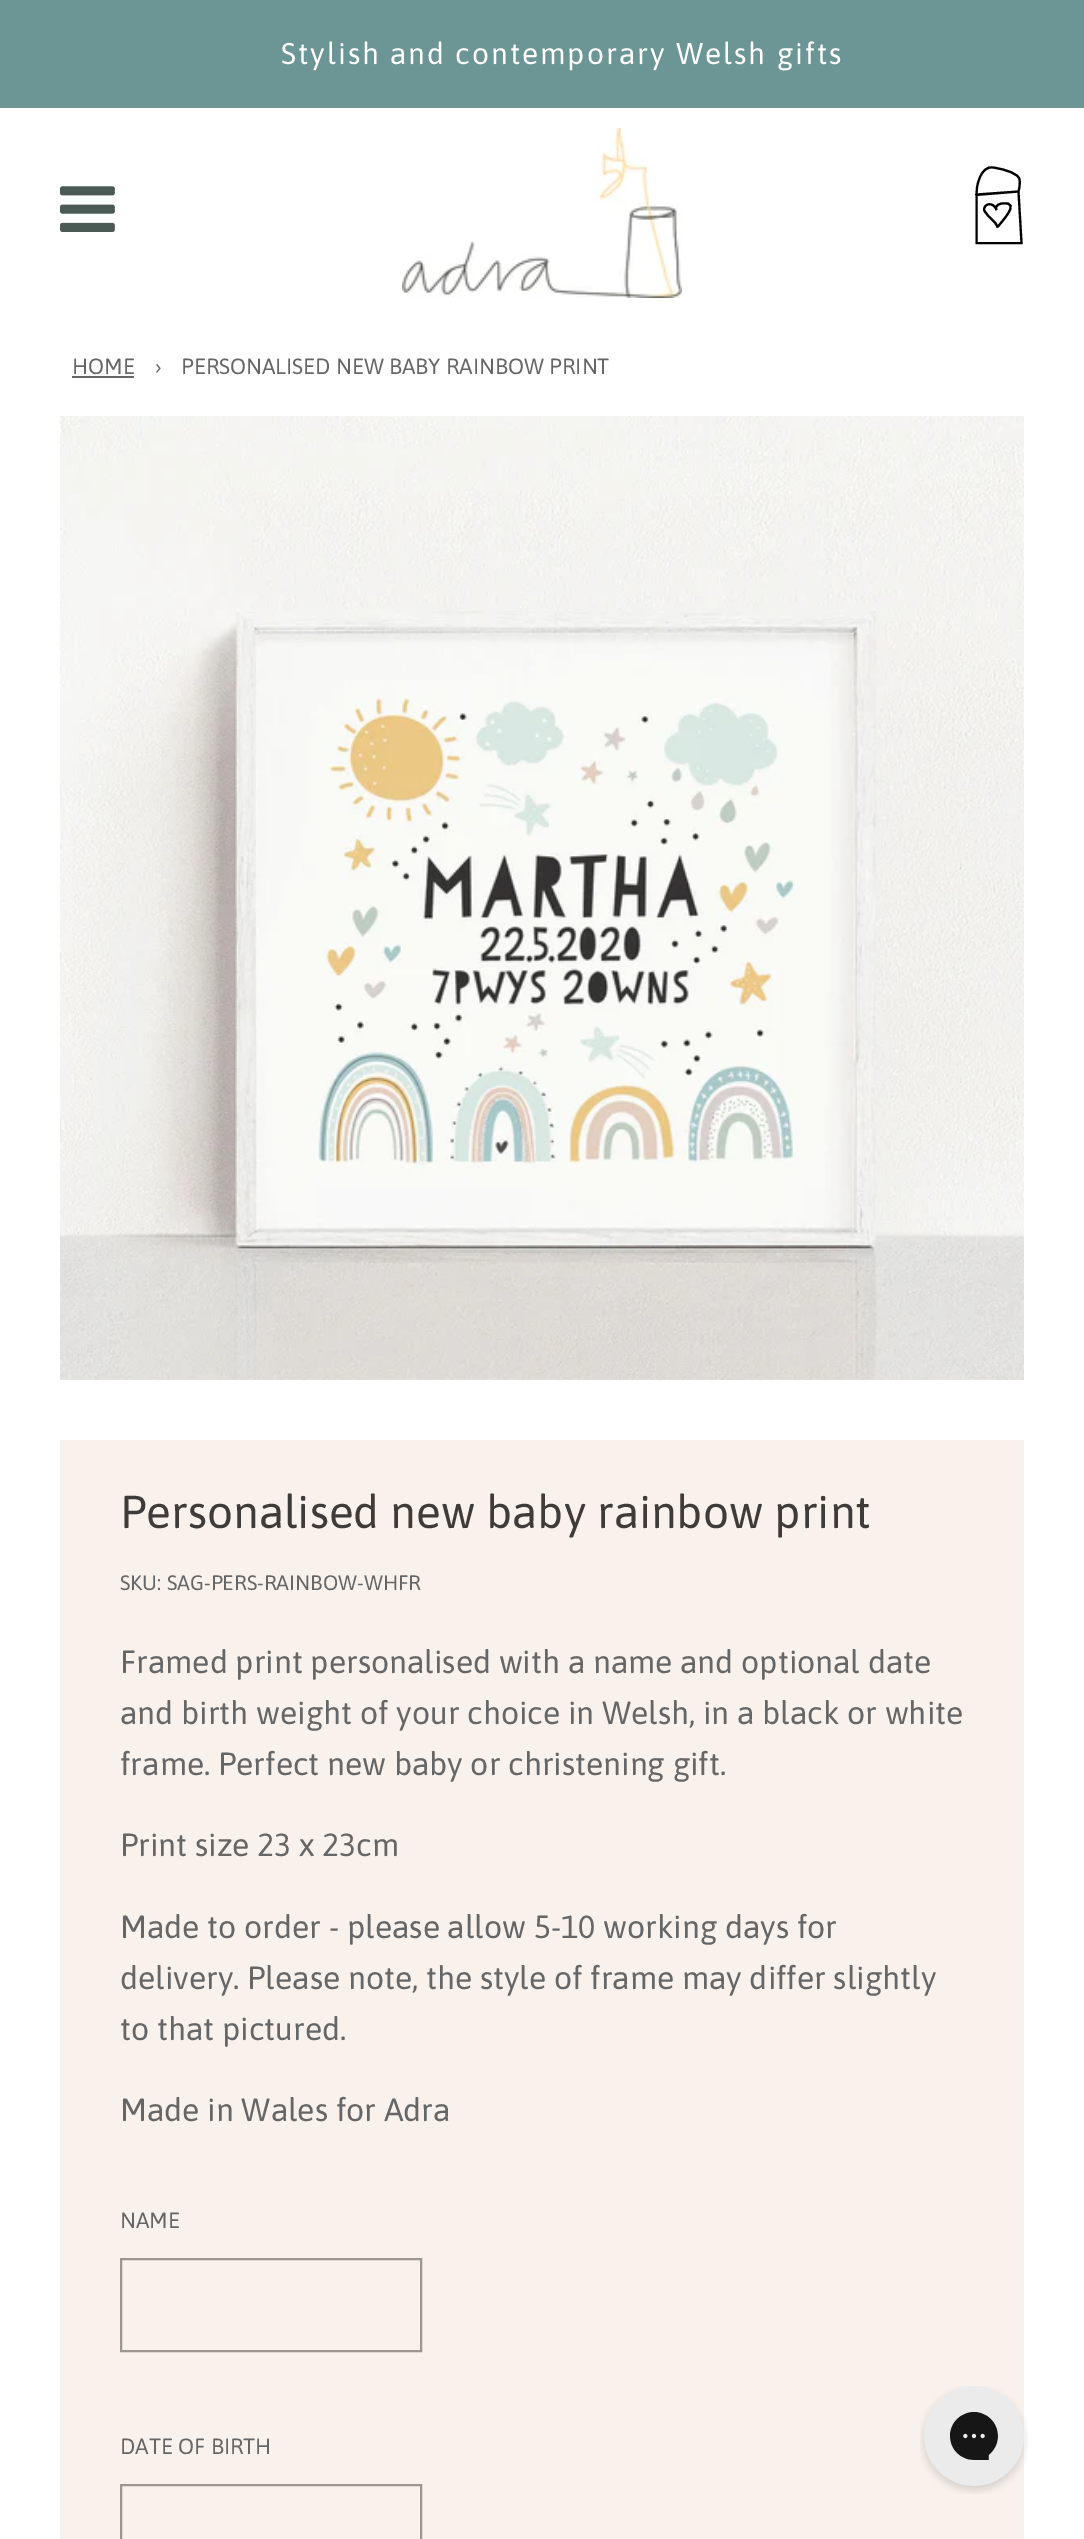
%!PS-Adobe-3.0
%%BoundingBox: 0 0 1084 2539
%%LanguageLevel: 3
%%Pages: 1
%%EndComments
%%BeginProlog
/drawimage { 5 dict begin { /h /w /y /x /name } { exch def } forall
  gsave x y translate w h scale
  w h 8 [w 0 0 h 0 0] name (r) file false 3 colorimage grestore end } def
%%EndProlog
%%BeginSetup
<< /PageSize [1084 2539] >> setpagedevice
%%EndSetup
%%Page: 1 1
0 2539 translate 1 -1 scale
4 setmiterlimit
1 setgray
0 0 1084 2539 rectfill
0.424 0.588 0.584 setrgbcolor
0 0 1084 108 rectfill
(images/1.raw) 60 186 55 46 drawimage
(images/2.raw) 402 128 280 170 drawimage
0 setgray
2.1 setlinewidth
newpath 996.5 210 moveto 993.5 201.5 984 203 984 210 curveto 990.5 221 995.5 220 997.5 227.5 curveto 997.5 225.5 1024 200.5 1002 203.5 curveto 995 204.5 995.5 208.5 996.5 210 curveto closepath stroke
gsave
newpath 975 166 moveto 1023 166 lineto 1023 245 lineto 975 245 lineto closepath clip newpath
newpath 976.5 194.5 moveto 977 187.5 lineto 977 187.5 980 165.5 993 167.5 curveto 1006.5 169.5 1019 174 1019.5 179.5 curveto 1020.5 185 1018.5 191 1018.5 191.5 curveto 1021.5 243 lineto 976.5 243 lineto 976.5 194.5 lineto 1018.5 191.5 lineto 975.5 195 lineto closepath stroke
grestore
0.4 setgray
72 376 62 2 rectfill
(images/3.raw) 60 416 964 964 drawimage
0.973 0.945 0.925 setrgbcolor
60 1440 964 1099 rectfill
0.612 0.588 0.576 setrgbcolor
2 setlinewidth
121 2259 300 92 rectstroke
121 2485 300 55 rectstroke
(images/4.raw) 920 2386 108 108 drawimage
/Asap-Regular [30 0 0 -30 0 0] selectfont
1 setgray
281 64 moveto 2 0 (Stylish and contemporary Welsh gifts) ashow
/Asap-Regular [22 0 0 -22 0 0] selectfont
0.4 setgray
72 374 moveto (HOME) show
155 374 moveto (›) show
181 374 moveto (PERSONALISED NEW BABY RAINBOW PRINT) show
/Asap-Regular [46 0 0 -46 0 0] selectfont
0.247 0.231 0.224 setrgbcolor
120 1528 moveto (Personalised new baby rainbow print) show
/Asap-Regular [20.9 0 0 -20.9 0 0] selectfont
0.4 setgray
120 1590 moveto (SKU: SAG-PERS-RAINBOW-WHFR) show
/Asap-Regular [32 0 0 -32 0 0] selectfont
120 1673 moveto (Framed print personalised with a name and optional date) show
120 1724 moveto (and birth weight of your choice in Welsh, in a black or white) show
120 1775 moveto (frame. Perfect new baby or christening gift.) show
120 1856 moveto (Print size 23 x 23cm) show
120 1938 moveto (Made to order - please allow 5-10 working days for) show
120 1989 moveto (delivery. Please note, the style of frame may differ slightly) show
120 2040 moveto (to that pictured.) show
120 2121 moveto (Made in Wales for Adra) show
/Asap-Regular [22 0 0 -22 0 0] selectfont
120 2228 moveto (NAME) show
120 2454 moveto (DATE OF BIRTH) show
showpage
%%EOF
